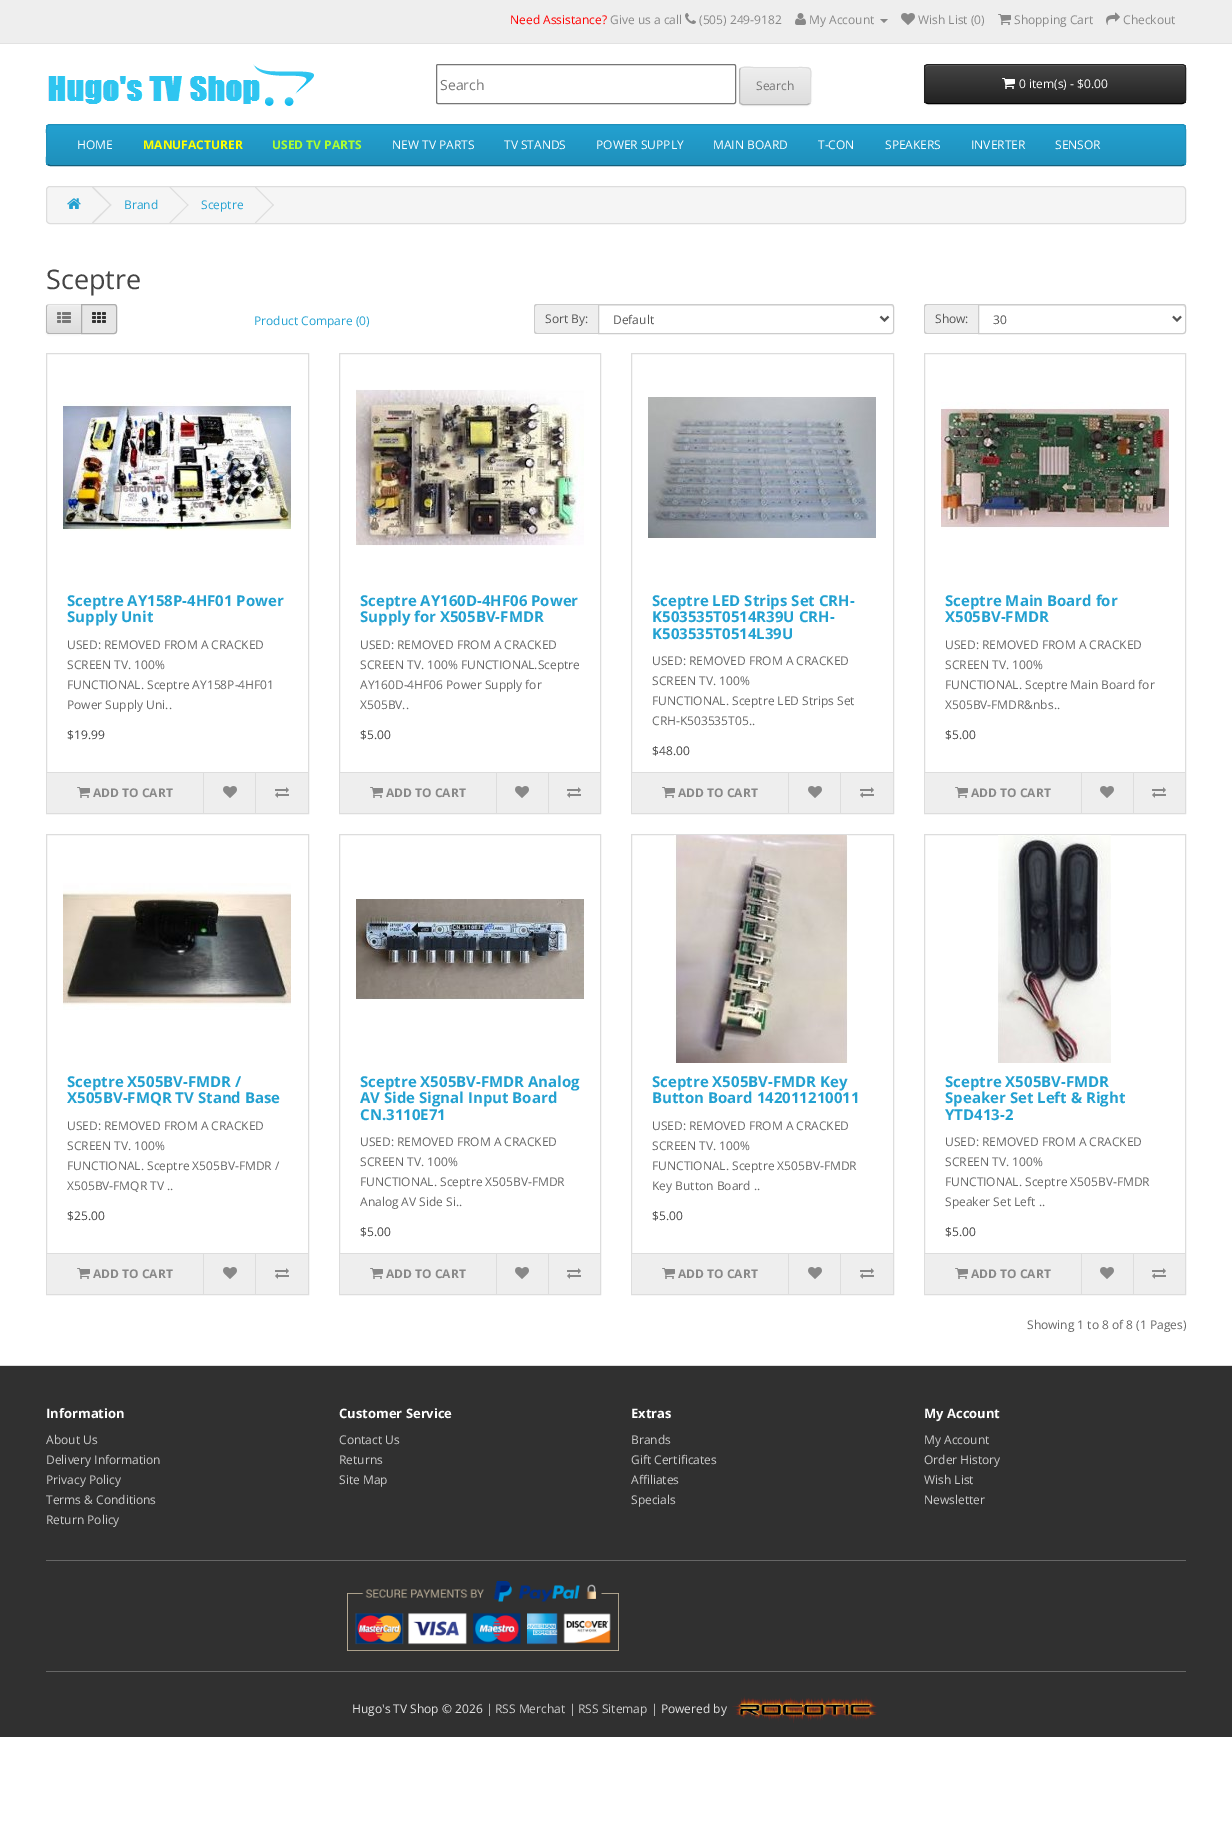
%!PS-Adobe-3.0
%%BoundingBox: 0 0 1232 1829
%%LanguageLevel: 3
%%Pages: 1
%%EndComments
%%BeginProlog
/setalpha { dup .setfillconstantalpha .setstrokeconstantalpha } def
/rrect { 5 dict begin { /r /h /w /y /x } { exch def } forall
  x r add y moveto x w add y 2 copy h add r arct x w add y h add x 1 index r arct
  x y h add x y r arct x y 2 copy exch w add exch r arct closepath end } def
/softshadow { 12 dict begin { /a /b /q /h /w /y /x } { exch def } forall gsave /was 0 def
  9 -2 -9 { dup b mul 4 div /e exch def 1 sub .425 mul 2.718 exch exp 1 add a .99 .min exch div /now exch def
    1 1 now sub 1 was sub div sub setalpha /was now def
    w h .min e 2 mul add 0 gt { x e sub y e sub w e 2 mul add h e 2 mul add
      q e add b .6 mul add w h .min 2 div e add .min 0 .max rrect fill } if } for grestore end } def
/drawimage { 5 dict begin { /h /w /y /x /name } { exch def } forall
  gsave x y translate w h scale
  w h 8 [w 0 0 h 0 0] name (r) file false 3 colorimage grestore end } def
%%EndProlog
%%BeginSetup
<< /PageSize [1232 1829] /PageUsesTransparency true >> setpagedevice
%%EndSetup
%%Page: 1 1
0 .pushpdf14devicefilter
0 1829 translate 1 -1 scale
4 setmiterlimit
1 setgray
0 0 1232 1829 rectfill
0.933 setgray
0 0 1232 43 rectfill
0.886 setgray
0 43 1232 1 rectfill
(images/1.raw) 685 13 11 11 drawimage
(images/2.raw) 795 13 11 12 drawimage
0.533 setgray
newpath 880 19 moveto 888 19 lineto 884 23 lineto closepath fill
(images/3.raw) 901 13 14 12 drawimage
(images/4.raw) 998 14 13 11 drawimage
(images/5.raw) 1106 12 14 13 drawimage
(images/6.raw) 48 64 266 42 drawimage
0.463 setgray
436.5 64.5 299 39 1.5 rrect stroke
0 setgray
739 68 72 38 4 1 0.05 softshadow
0.906 setgray
739 67 72 38 4 rrect fill
gsave
739 67 72 38 4 rrect clip newpath
gsave newpath 739 68 moveto 811 68 lineto 811 104 lineto 739 104 lineto closepath clip newpath
<< /ShadingType 2 /ColorSpace /DeviceRGB /Coords [775 68 775 104] /Extend [true true] /Function << /FunctionType 2 /Domain [0 1] /C0 [0.933 0.933 0.933] /C1 [0.867 0.867 0.867] /N 1 >> >> shfill grestore
grestore
0.2 setalpha
1 setgray
newpath 743 69 moveto 807 69 lineto 809 69 810 70 810 72 curveto 810 65 801 68 796 68 curveto 754 68 lineto 749 68 740 65 740 72 curveto 740 70 741 69 743 69 curveto closepath fill
1 setalpha
0.867 setgray
newpath 740.5 68.5 moveto 743 66 752.5 67.5 753.5 67.5 curveto 796.5 67.5 lineto 814.5 67.5 810.5 66.5 810.5 86 curveto 810.5 96 lineto 810.5 98 811.5 101.5 809.5 103.5 curveto stroke
0.702 setgray
newpath 809.5 103.5 moveto 807.5 104.5 lineto 742.5 104.5 lineto 740.5 103.5 lineto stroke
0.718 setgray
newpath 740.5 103.5 moveto 740 103 739.5 102 739.5 101 curveto 739.5 71 lineto 739.5 70 740 69 740.5 68.5 curveto stroke
0 setgray
924 65 262 40 4 1 0.05 softshadow
gsave
924 64 262 40 4 rrect clip newpath
gsave newpath 924 65 moveto 1186 65 lineto 1186 103 lineto 924 103 lineto closepath clip newpath
<< /ShadingType 2 /ColorSpace /DeviceRGB /Coords [1055 65 1055 103] /Extend [true true] /Function << /FunctionType 2 /Domain [0 1] /C0 [0.267 0.267 0.267] /C1 [0.133 0.133 0.133] /N 1 >> >> shfill grestore
grestore
0.412 setgray
newpath 928 66 moveto 1183 66 lineto 1185 67 lineto 1185 69 lineto 1185 68 lineto 1185 66 1184 65 1182 65 curveto 928 65 lineto 926 65 925 66 925 68 curveto 925 69 lineto 925 67 926 66 928 66 curveto closepath fill
0 setgray
newpath 1184.5 102.5 moveto 1184 103 1183 103.5 1182 103.5 curveto 928 103.5 lineto 927 103.5 926 103 925.5 102.5 curveto stroke
0.133 setgray
newpath 925.5 102.5 moveto 925 102 924.5 101 924.5 100 curveto 924.5 68 lineto 924.5 67 925 66 925.5 65.5 curveto 926 65 927 64.5 928 64.5 curveto 1182 64.5 lineto 1183 64.5 1184 65 1184.5 65.5 curveto 1185 66 1185.5 67 1185.5 68 curveto 1185.5 100 lineto 1185.5 101 1185 102 1184.5 102.5 curveto stroke
(images/7.raw) 1002 78 13 11 drawimage
0.133 0.604 0.784 setrgbcolor
46 124 1140 42 4 rrect fill
gsave
46 124 1140 42 4 rrect clip newpath
gsave newpath 46 125 moveto 1186 125 lineto 1186 165 lineto 46 165 lineto closepath clip newpath
<< /ShadingType 2 /ColorSpace /DeviceRGB /Coords [616 125 616 165] /Extend [true true] /Function << /FunctionType 2 /Domain [0 1] /C0 [0.137 0.631 0.82] /C1 [0.122 0.565 0.733] /N 1 >> >> shfill grestore
grestore
0.078 0.369 0.478 setrgbcolor
newpath 1184.5 164.5 moveto 1182 165.5 lineto 50 165.5 lineto 47.5 164.5 lineto stroke
0.122 0.565 0.733 setrgbcolor
newpath 47.5 164.5 moveto 45.5 162.5 46.5 158 46.5 156.5 curveto 46.5 133.5 lineto 46.5 131 45.5 124.5 50 124.5 curveto 1182 124.5 lineto 1186.5 124.5 1185.5 131 1185.5 133.5 curveto 1185.5 156.5 lineto 1185.5 158 1186.5 162.5 1184.5 164.5 curveto stroke
0.961 setgray
46.5 186.5 1139 37 3.5 rrect gsave fill grestore
0.867 setgray
stroke
(images/8.raw) 67 198 14 11 drawimage
newpath 92 187.5 moveto 93 186.5 lineto 111.5 205 lineto 110.5 205.5 lineto closepath fill
newpath 92 222.5 moveto 110.5 204.5 lineto 111.5 205 lineto 93 223.5 lineto closepath fill
newpath 169.5 187.5 moveto 170 186.5 lineto 188.5 205 lineto 188 205.5 lineto closepath fill
newpath 169.5 222.5 moveto 188 204.5 lineto 188.5 205 lineto 170 223.5 lineto closepath fill
newpath 255 187.5 moveto 255.5 186.5 lineto 274 205 lineto 273 205.5 lineto closepath fill
newpath 255 222.5 moveto 273 204.5 lineto 274 205 lineto 255.5 223.5 lineto closepath fill
0 setgray
46 305 36 30 3 1 0.05 softshadow
0.906 setgray
newpath 49 304 moveto 82 304 lineto 82 334 lineto 49 334 lineto 47.5 334 46 332.5 46 331 curveto 46 307 lineto 46 305.5 47.5 304 49 304 curveto closepath fill
gsave
newpath 49 304 moveto 82 304 lineto 82 334 lineto 49 334 lineto 47.5 334 46 332.5 46 331 curveto 46 307 lineto 46 305.5 47.5 304 49 304 curveto closepath clip newpath
gsave newpath 46 305 moveto 81 305 lineto 81 333 lineto 46 333 lineto closepath clip newpath
<< /ShadingType 2 /ColorSpace /DeviceRGB /Coords [64 305 64 333] /Extend [true true] /Function << /FunctionType 2 /Domain [0 1] /C0 [0.933 0.933 0.933] /C1 [0.867 0.867 0.867] /N 1 >> >> shfill grestore
grestore
0.945 setgray
newpath 49 306 moveto 81 306 lineto 81 305 lineto 49 305 lineto 48 305 47 306 47 307 curveto 47 308 lineto 47 307 48 306 49 306 curveto closepath fill
0.867 setgray
newpath 49 304 moveto 48 304 47.5 304.5 47 305 curveto 47.5 305.5 lineto 49 305 lineto 81 305 lineto 82 304 lineto closepath fill
0.702 setgray
newpath 82 334 moveto 81 333 lineto 49 333 lineto 47.5 332.5 lineto 47 333 lineto 47.5 333.5 48 334 49 334 curveto closepath fill
0.718 setgray
newpath 46 307 moveto 46 331 lineto 46 332 46.5 332.5 47 333 curveto 47.5 332.5 lineto 47 332 47 331.5 47 331 curveto 47 307 lineto 47 306.5 47 306 47.5 305.5 curveto 47 305 lineto 46.5 305.5 46 306 46 307 curveto closepath fill
(images/9.raw) 57 312 14 11 drawimage
0.902 setgray
newpath 81.5 304.5 moveto 114 304.5 lineto 115.5 304.5 116.5 305.5 116.5 307 curveto 116.5 331 lineto 116.5 332.5 115.5 333.5 114 333.5 curveto 81.5 333.5 lineto closepath gsave fill grestore
0.678 setgray
stroke
(images/10.raw) 92 312 14 11 drawimage
0.933 setgray
newpath 537 304 moveto 598 304 lineto 598 334 lineto 537 334 lineto 535.5 334 534 332.5 534 331 curveto 534 307 lineto 534 305.5 535.5 304 537 304 curveto closepath fill
0.8 setgray
newpath 537 304 moveto 598 304 lineto 598 334 lineto 537 334 lineto 535 334 534 333 534 331 curveto 534 307 lineto 534 305 535 304 537 304 curveto closepath 537 305 moveto 598 305 lineto 598 333 lineto 537 333 lineto 536 333 535 332 535 331 curveto 535 307 lineto 535 306 536 305 537 305 curveto closepath eofill
0.925 setgray
newpath 599 306 moveto 891 306 lineto 892 306 893 307 893 308 curveto 892 305 lineto 599 305 lineto closepath fill
0.8 setgray
newpath 598.5 304.5 moveto 891 304.5 lineto 892.5 304.5 893.5 305.5 893.5 307 curveto 893.5 331 lineto 893.5 332.5 892.5 333.5 891 333.5 curveto 598.5 333.5 lineto closepath stroke
0.333 setgray
2 setlinewidth
newpath 880.5 316.5 moveto 884.5 320.5 lineto 888.5 316.5 lineto stroke
0.933 setgray
newpath 927 304 moveto 978 304 lineto 978 334 lineto 927 334 lineto 925.5 334 924 332.5 924 331 curveto 924 307 lineto 924 305.5 925.5 304 927 304 curveto closepath fill
0.8 setgray
newpath 927 304 moveto 978 304 lineto 978 334 lineto 927 334 lineto 925 334 924 333 924 331 curveto 924 307 lineto 924 305 925 304 927 304 curveto closepath 927 305 moveto 978 305 lineto 978 333 lineto 927 333 lineto 926 333 925 332 925 331 curveto 925 307 lineto 925 306 926 305 927 305 curveto closepath eofill
0.925 setgray
newpath 979 306 moveto 1183 306 lineto 1185 307 lineto 1185 308 lineto 1185 307 1185 305 1183 305 curveto 979 305 lineto closepath fill
0.8 setgray
1 setlinewidth
newpath 978.5 304.5 moveto 1183 304.5 lineto 1184.5 304.5 1185.5 305.5 1185.5 307 curveto 1185.5 331 lineto 1185.5 332.5 1184.5 333.5 1183 333.5 curveto 978.5 333.5 lineto closepath stroke
0.333 setgray
2 setlinewidth
newpath 1173 316.5 moveto 1177 320.5 lineto 1181 316.5 lineto stroke
0.867 setgray
1 setlinewidth
46.5 353.5 262 460 rectstroke
(images/11.raw) 63 402 228 129 drawimage
0.933 setgray
47 773 261 40 rectfill
0.867 setgray
47 772 261 1 rectfill
(images/4.raw) 77 787 13 11 drawimage
203 773 1 40 rectfill
(images/3.raw) 223 786 14 12 drawimage
255 773 1 40 rectfill
(images/12.raw) 275 787 14 11 drawimage
339.5 353.5 261 460 rectstroke
(images/13.raw) 356 389 228 157 drawimage
0.933 setgray
340 773 260 40 rectfill
0.867 setgray
340 772 260 1 rectfill
(images/4.raw) 370 787 13 11 drawimage
496 773 1 40 rectfill
(images/3.raw) 515 786 14 12 drawimage
548 773 1 40 rectfill
(images/12.raw) 567 787 14 11 drawimage
631.5 353.5 262 460 rectstroke
(images/14.raw) 648 397 228 141 drawimage
0.933 setgray
632 773 261 40 rectfill
0.867 setgray
632 772 261 1 rectfill
(images/4.raw) 662 787 13 11 drawimage
788 773 1 40 rectfill
(images/3.raw) 808 786 14 12 drawimage
840 773 1 40 rectfill
(images/12.raw) 860 787 14 11 drawimage
924.5 353.5 261 460 rectstroke
(images/15.raw) 941 402 228 128 drawimage
0.933 setgray
925 773 260 40 rectfill
0.867 setgray
925 772 260 1 rectfill
(images/4.raw) 955 787 13 11 drawimage
1081 773 1 40 rectfill
(images/3.raw) 1100 786 14 12 drawimage
1133 773 1 40 rectfill
(images/12.raw) 1152 787 14 11 drawimage
46.5 834.5 262 460 rectstroke
(images/16.raw) 63 883 228 127 drawimage
0.933 setgray
47 1254 261 40 rectfill
0.867 setgray
47 1253 261 1 rectfill
(images/4.raw) 77 1268 13 11 drawimage
203 1254 1 40 rectfill
(images/3.raw) 223 1267 14 12 drawimage
255 1254 1 40 rectfill
(images/12.raw) 275 1268 14 11 drawimage
339.5 834.5 261 460 rectstroke
(images/17.raw) 356 899 228 101 drawimage
0.933 setgray
340 1254 260 40 rectfill
0.867 setgray
340 1253 260 1 rectfill
(images/4.raw) 370 1268 13 11 drawimage
496 1254 1 40 rectfill
(images/3.raw) 515 1267 14 12 drawimage
548 1254 1 40 rectfill
(images/12.raw) 567 1268 14 11 drawimage
631.5 834.5 262 460 rectstroke
(images/18.raw) 674 835 174 228 drawimage
0.933 setgray
632 1254 261 40 rectfill
0.867 setgray
632 1253 261 1 rectfill
(images/4.raw) 662 1268 13 11 drawimage
788 1254 1 40 rectfill
(images/3.raw) 808 1267 14 12 drawimage
840 1254 1 40 rectfill
(images/12.raw) 860 1268 14 11 drawimage
924.5 834.5 261 460 rectstroke
(images/19.raw) 998 835 113 228 drawimage
0.933 setgray
925 1254 260 40 rectfill
0.867 setgray
925 1253 260 1 rectfill
(images/4.raw) 955 1268 13 11 drawimage
1081 1254 1 40 rectfill
(images/3.raw) 1100 1267 14 12 drawimage
1133 1254 1 40 rectfill
(images/12.raw) 1152 1268 14 11 drawimage
0.188 setgray
0 1366 1232 371 rectfill
0.867 setgray
0 1365 1232 1 rectfill
0.4 setgray
46 1560 1140 1 rectfill
(images/20.raw) 347 1581 272 70 drawimage
46 1671 1140 1 rectfill
(images/21.raw) 732 1696 145 27 drawimage
/OpenSans-Regular [12 0 0 -12 0 0] selectfont
1 0 0 setrgbcolor
510 24 moveto (Need Assistance?) show
0.533 setgray
610 24 moveto (Give us a call) show
699 24 moveto (\(505\) 249-9182) show
809 24 moveto (My Account) show
918 24 moveto (Wish List \(0\)) show
1014 24 moveto (Shopping Cart) show
1123 24 moveto (Checkout) show
/OpenSans-Regular [14 0 0 -14 0 0] selectfont
0.459 setgray
440 90 moveto (Search) show
/OpenSans-Regular [12 0 0 -12 0 0] selectfont
756 90 moveto (Search) show
1 setgray
1019 88 moveto (0 item\(s\) - $0.00) show
77 149 moveto (HOME) show
/OpenSans-Bold [12 0 0 -12 0 0] selectfont
1 1 0 setrgbcolor
143 149 moveto (MANUFACTURER) show
0.678 1 0.184 setrgbcolor
272 149 moveto (USED TV PARTS) show
/OpenSans-Regular [12 0 0 -12 0 0] selectfont
1 setgray
392 149 moveto (NEW TV PARTS) show
504 149 moveto (TV STANDS) show
596 149 moveto (POWER SUPPLY) show
713 149 moveto (MAIN BOARD) show
818 149 moveto (T-CON) show
885 149 moveto (SPEAKERS) show
971 149 moveto (INVERTER) show
1055 149 moveto (SENSOR) show
0.137 0.631 0.82 setrgbcolor
124 209 moveto (Brand) show
201 209 moveto (Sceptre) show
/OpenSans-Regular [27 0 0 -27 0 0] selectfont
0.267 setgray
46 289 moveto (Sceptre) show
/OpenSans-Regular [12 0 0 -12 0 0] selectfont
0.137 0.631 0.82 setrgbcolor
254 325 moveto (Product Compare \(0\)) show
0.333 setgray
545 323 moveto (Sort By:) show
613 324 moveto (Default) show
935 323 moveto (Show:) show
993 324 moveto (30) show
/OpenSans-Bold [15 0 0 -15 0 0] selectfont
0.137 0.631 0.82 setrgbcolor
67 606 moveto (Sceptre AY158P-4HF01 Power) show
67 622 moveto (Supply Unit) show
/OpenSans-Regular [12 0 0 -12 0 0] selectfont
0.4 setgray
67 649 moveto (USED: REMOVED FROM A CRACKED) show
67 669 moveto (SCREEN TV. 100%) show
67 689 moveto (FUNCTIONAL. Sceptre AY158P-4HF01) show
67 709 moveto (Power Supply Uni..) show
0.267 setgray
67 739 moveto ($19.99) show
/OpenSans-Bold [12 0 0 -12 0 0] selectfont
0.533 setgray
93 797 moveto (ADD TO CART) show
/OpenSans-Bold [15 0 0 -15 0 0] selectfont
0.137 0.631 0.82 setrgbcolor
360 606 moveto (Sceptre AY160D-4HF06 Power) show
360 622 moveto (Supply for X505BV-FMDR) show
/OpenSans-Regular [12 0 0 -12 0 0] selectfont
0.4 setgray
360 649 moveto (USED: REMOVED FROM A CRACKED) show
360 669 moveto (SCREEN TV. 100% FUNCTIONAL.Sceptre) show
360 689 moveto (AY160D-4HF06 Power Supply for) show
360 709 moveto (X505BV..) show
0.267 setgray
360 739 moveto ($5.00) show
/OpenSans-Bold [12 0 0 -12 0 0] selectfont
0.533 setgray
386 797 moveto (ADD TO CART) show
/OpenSans-Bold [15 0 0 -15 0 0] selectfont
0.137 0.631 0.82 setrgbcolor
652 606 moveto (Sceptre LED Strips Set CRH-) show
652 622 moveto (K503535T0514R39U CRH-) show
652 639 moveto (K503535T0514L39U) show
/OpenSans-Regular [12 0 0 -12 0 0] selectfont
0.4 setgray
652 665 moveto (USED: REMOVED FROM A CRACKED) show
652 685 moveto (SCREEN TV. 100%) show
652 705 moveto (FUNCTIONAL. Sceptre LED Strips Set) show
652 725 moveto (CRH-K503535T05..) show
0.267 setgray
652 755 moveto ($48.00) show
/OpenSans-Bold [12 0 0 -12 0 0] selectfont
0.533 setgray
678 797 moveto (ADD TO CART) show
/OpenSans-Bold [15 0 0 -15 0 0] selectfont
0.137 0.631 0.82 setrgbcolor
945 606 moveto (Sceptre Main Board for) show
945 622 moveto (X505BV-FMDR) show
/OpenSans-Regular [12 0 0 -12 0 0] selectfont
0.4 setgray
945 649 moveto (USED: REMOVED FROM A CRACKED) show
945 669 moveto (SCREEN TV. 100%) show
945 689 moveto (FUNCTIONAL. Sceptre Main Board for) show
945 709 moveto (X505BV-FMDR&nbs..) show
0.267 setgray
945 739 moveto ($5.00) show
/OpenSans-Bold [12 0 0 -12 0 0] selectfont
0.533 setgray
971 797 moveto (ADD TO CART) show
/OpenSans-Bold [15 0 0 -15 0 0] selectfont
0.137 0.631 0.82 setrgbcolor
67 1087 moveto (Sceptre X505BV-FMDR /) show
67 1103 moveto (X505BV-FMQR TV Stand Base) show
/OpenSans-Regular [12 0 0 -12 0 0] selectfont
0.4 setgray
67 1130 moveto (USED: REMOVED FROM A CRACKED) show
67 1150 moveto (SCREEN TV. 100%) show
67 1170 moveto (FUNCTIONAL. Sceptre X505BV-FMDR /) show
67 1190 moveto (X505BV-FMQR TV ..) show
0.267 setgray
67 1220 moveto ($25.00) show
/OpenSans-Bold [12 0 0 -12 0 0] selectfont
0.533 setgray
93 1278 moveto (ADD TO CART) show
/OpenSans-Bold [15 0 0 -15 0 0] selectfont
0.137 0.631 0.82 setrgbcolor
360 1087 moveto (Sceptre X505BV-FMDR Analog) show
360 1103 moveto (AV Side Signal Input Board) show
360 1120 moveto (CN.3110E71) show
/OpenSans-Regular [12 0 0 -12 0 0] selectfont
0.4 setgray
360 1146 moveto (USED: REMOVED FROM A CRACKED) show
360 1166 moveto (SCREEN TV. 100%) show
360 1186 moveto (FUNCTIONAL. Sceptre X505BV-FMDR) show
360 1206 moveto (Analog AV Side Si..) show
0.267 setgray
360 1236 moveto ($5.00) show
/OpenSans-Bold [12 0 0 -12 0 0] selectfont
0.533 setgray
386 1278 moveto (ADD TO CART) show
/OpenSans-Bold [15 0 0 -15 0 0] selectfont
0.137 0.631 0.82 setrgbcolor
652 1087 moveto (Sceptre X505BV-FMDR Key) show
652 1103 moveto (Button Board 142011210011) show
/OpenSans-Regular [12 0 0 -12 0 0] selectfont
0.4 setgray
652 1130 moveto (USED: REMOVED FROM A CRACKED) show
652 1150 moveto (SCREEN TV. 100%) show
652 1170 moveto (FUNCTIONAL. Sceptre X505BV-FMDR) show
652 1190 moveto (Key Button Board ..) show
0.267 setgray
652 1220 moveto ($5.00) show
/OpenSans-Bold [12 0 0 -12 0 0] selectfont
0.533 setgray
678 1278 moveto (ADD TO CART) show
/OpenSans-Bold [15 0 0 -15 0 0] selectfont
0.137 0.631 0.82 setrgbcolor
945 1087 moveto (Sceptre X505BV-FMDR) show
945 1103 moveto (Speaker Set Left & Right) show
945 1120 moveto (YTD413-2) show
/OpenSans-Regular [12 0 0 -12 0 0] selectfont
0.4 setgray
945 1146 moveto (USED: REMOVED FROM A CRACKED) show
945 1166 moveto (SCREEN TV. 100%) show
945 1186 moveto (FUNCTIONAL. Sceptre X505BV-FMDR) show
945 1206 moveto (Speaker Set Left ..) show
0.267 setgray
945 1236 moveto ($5.00) show
/OpenSans-Bold [12 0 0 -12 0 0] selectfont
0.533 setgray
971 1278 moveto (ADD TO CART) show
/OpenSans-Regular [12 0 0 -12 0 0] selectfont
0.4 setgray
1027 1329 moveto (Showing 1 to 8 of 8 \(1 Pages\)) show
/OpenSans-Bold [13 0 0 -13 0 0] selectfont
1 setgray
46 1418 moveto (Information) show
/OpenSans-Regular [12 0 0 -12 0 0] selectfont
0.8 setgray
46 1444 moveto (About Us) show
46 1464 moveto (Delivery Information) show
46 1484 moveto (Privacy Policy) show
46 1504 moveto (Terms & Conditions) show
46 1524 moveto (Return Policy) show
/OpenSans-Bold [13 0 0 -13 0 0] selectfont
1 setgray
339 1418 moveto (Customer Service) show
/OpenSans-Regular [12 0 0 -12 0 0] selectfont
0.8 setgray
339 1444 moveto (Contact Us) show
339 1464 moveto (Returns) show
339 1484 moveto (Site Map) show
/OpenSans-Bold [13 0 0 -13 0 0] selectfont
1 setgray
631 1418 moveto (Extras) show
/OpenSans-Regular [12 0 0 -12 0 0] selectfont
0.8 setgray
631 1444 moveto (Brands) show
631 1464 moveto (Gift Certificates) show
631 1484 moveto (Affiliates) show
631 1504 moveto (Specials) show
/OpenSans-Bold [13 0 0 -13 0 0] selectfont
1 setgray
924 1418 moveto (My Account) show
/OpenSans-Regular [12 0 0 -12 0 0] selectfont
0.8 setgray
924 1444 moveto (My Account) show
924 1464 moveto (Order History) show
924 1484 moveto (Wish List) show
924 1504 moveto (Newsletter) show
0.886 setgray
352 1713 moveto (Hugo's TV Shop © 2026 |) show
0.8 setgray
495 1713 moveto (RSS Merchat) show
0.886 setgray
569 1713 moveto (|) show
0.8 setgray
578 1713 moveto (RSS Sitemap) show
0.886 setgray
651 1713 moveto (| Powered by) show
.poppdf14devicefilter showpage
%%EOF
